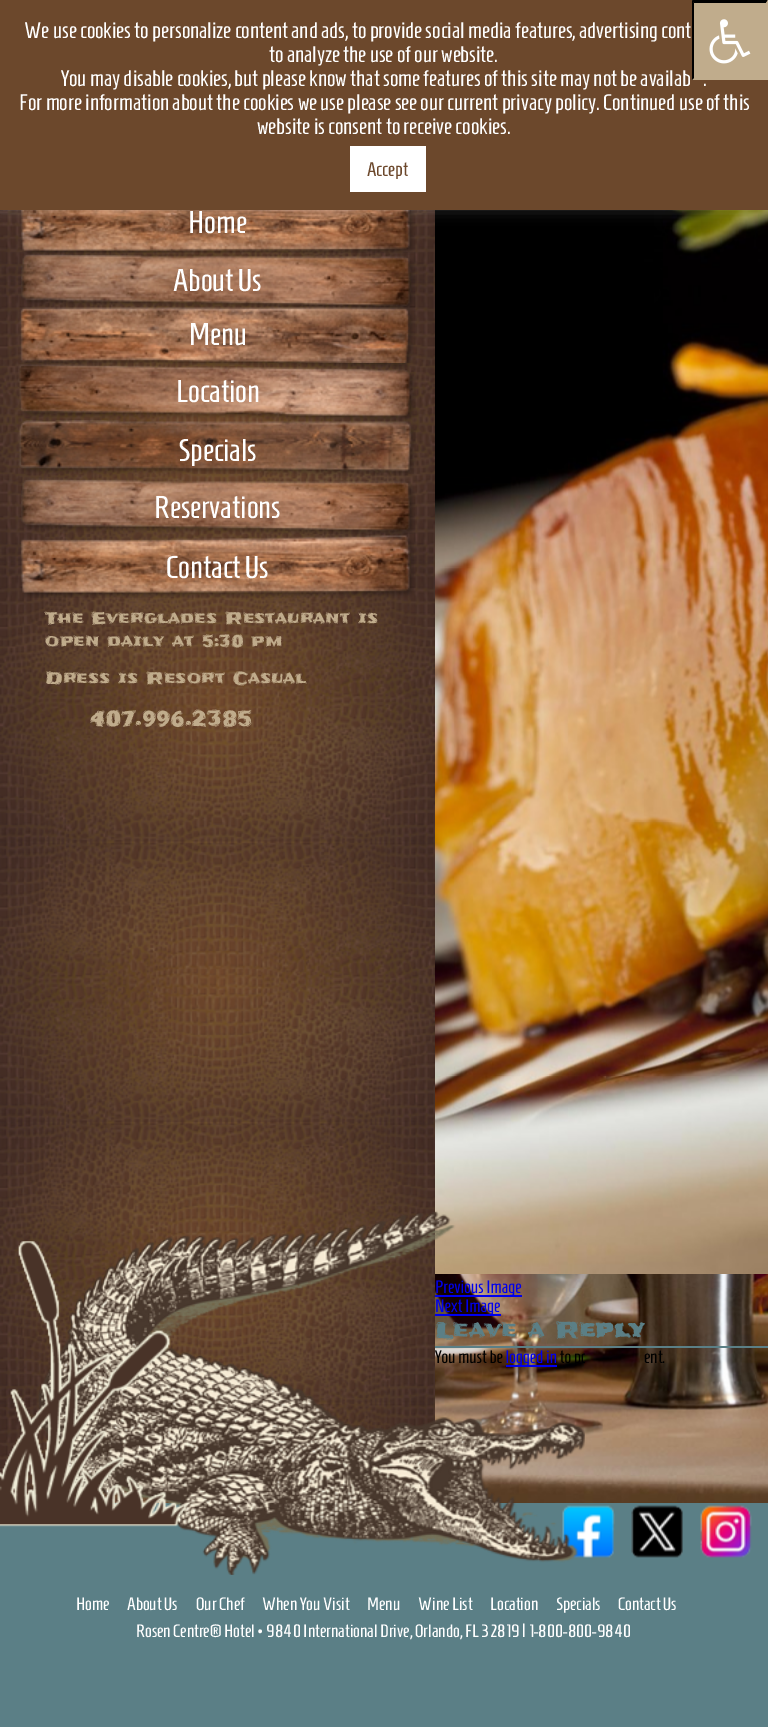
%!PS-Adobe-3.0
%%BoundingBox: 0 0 768 1727
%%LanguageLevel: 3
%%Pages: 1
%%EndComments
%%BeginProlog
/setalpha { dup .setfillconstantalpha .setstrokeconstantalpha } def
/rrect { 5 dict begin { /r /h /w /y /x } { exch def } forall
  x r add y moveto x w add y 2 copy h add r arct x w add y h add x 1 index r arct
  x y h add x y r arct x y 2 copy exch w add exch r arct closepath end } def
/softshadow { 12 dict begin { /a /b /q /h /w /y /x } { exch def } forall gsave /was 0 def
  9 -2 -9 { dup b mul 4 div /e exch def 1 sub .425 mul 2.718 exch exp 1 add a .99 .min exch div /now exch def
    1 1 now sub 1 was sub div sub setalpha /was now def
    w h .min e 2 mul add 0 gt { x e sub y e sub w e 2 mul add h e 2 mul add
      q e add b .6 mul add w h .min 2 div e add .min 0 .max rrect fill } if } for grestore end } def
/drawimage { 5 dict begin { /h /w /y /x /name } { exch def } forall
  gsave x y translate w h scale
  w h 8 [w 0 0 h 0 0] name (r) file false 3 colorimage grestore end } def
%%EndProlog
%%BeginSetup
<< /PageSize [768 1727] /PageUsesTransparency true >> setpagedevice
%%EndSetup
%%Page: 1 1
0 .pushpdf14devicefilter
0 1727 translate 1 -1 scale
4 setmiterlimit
1 setgray
0 0 768 1727 rectfill
(images/11.raw) 435 210 333 1064 drawimage
(images/12.raw) 435 1274 333 229 drawimage
0 0 0.933 setrgbcolor
435 1295 87 2 rectfill
435 1314 66 2 rectfill
0.357 0.498 0.525 setrgbcolor
435 1346 333 2 rectfill
0 0 0.933 setrgbcolor
506 1365 51 2 rectfill
0.357 0.498 0.525 setrgbcolor
0 1503 768 224 rectfill
(images/13.raw) 562 1505 53 53 drawimage
(images/14.raw) 631 1505 52 53 drawimage
(images/15.raw) 700 1505 52 53 drawimage
/Homenaje-Regular [18 0 0 -18 0 0] selectfont
0 0 0.933 setrgbcolor
435 1293 moveto (Previous Image) show
435 1312 moveto (Next Image) show
/Frijole-Bold [22.5 0 0 -22.5 0 0] selectfont
0.357 0.498 0.525 setrgbcolor
435 1338 moveto (Leave a Reply) show
/Homenaje-Regular [18 0 0 -18 0 0] selectfont
0 setgray
435 1363 moveto (You must be) show
(images/2.raw) 0 210 435 1293 drawimage
(images/3.raw) 20 210 395 44 drawimage
0.675 0.671 0.671 setrgbcolor
0 -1 768 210 0 7.5 0.3 softshadow
0.424 0.282 0.173 setrgbcolor
0 0 768 210 rectfill
0.753 0.675 0.549 setrgbcolor
692 0 76 80 rectfill
(images/1.raw) 709 19 42 45 drawimage
0 setgray
newpath 692 0 moveto 768 0 lineto 766 3 lineto 694 3 lineto closepath fill
newpath 692 80 moveto 692 0 lineto 694 3 lineto 694 78 lineto closepath fill
0.753 0.675 0.549 setrgbcolor
newpath 768 0 moveto 768 80 lineto 766 78 lineto 766 3 lineto closepath fill
1 setgray
350 146 76 46 rectfill
/Homenaje-Regular [19.5 0 0 -19.5 0 0] selectfont
0.424 0.282 0.173 setrgbcolor
367 176 moveto (Accept) show
/Homenaje-Regular [22.5 0 0 -22.5 0 0] selectfont
1 setgray
257 134 moveto (website is consent to receive cookies.) show
19 110 moveto (For more information about the cookies we use please see our current privacy policy. Continued use of this) show
703 86 moveto (.) show
61 86 moveto (You may disable cookies, but please know that some features of this site may not be availab) show
269 62 moveto (to analyze the use of our website.) show
24 38 moveto (We use cookies to personalize content and ads, to provide social media features, advertising cont) show
(images/5.raw) 19 306 396 57 drawimage
/Homenaje-Regular [31.5 0 0 -31.5 0 0] selectfont
189 345 moveto (Menu) show
(images/4.raw) 21 254 394 52 drawimage
173 291 moveto (About Us) show
(images/9.raw) 20 534 394 64 drawimage
166 578 moveto (Contact Us) show
(images/8.raw) 21 478 394 56 drawimage
154 518 moveto (Reservations) show
(images/7.raw) 18 420 398 56 drawimage
178 461 moveto (Specials) show
(images/6.raw) 18 363 398 57 drawimage
176 402 moveto (Location) show
188 233 moveto (Home) show
/Frijole-Regular [21 0 0 -21 0 0] selectfont
0.753 0.675 0.549 setrgbcolor
90 726 moveto (407.996.2385) show
/Frijole-Regular [16.5 0 0 -16.5 0 0] selectfont
45 684 moveto (Dress is Resort Casual) show
45 647 moveto (open daily at 5:30 pm) show
45 624 moveto (The Everglades Restaurant is) show
/Homenaje-Regular [18 0 0 -18 0 0] selectfont
0 0 0.933 setrgbcolor
506 1363 moveto (logged in) show
0 setgray
560 1363 moveto (to) show
(images/10.raw) 0 1211 585 364 drawimage
644 1363 moveto (ent.) show
1 setgray
76 1610 moveto (Home) show
127 1610 moveto (About Us) show
196 1610 moveto (Our Chef) show
262 1610 moveto (When You Visit) show
367 1610 moveto (Menu) show
418 1610 moveto (Wine List) show
490 1610 moveto (Location) show
556 1610 moveto (Specials) show
618 1610 moveto (Contact Us) show
136 1637 moveto (Rosen Centre® Hotel • 9840 International Drive, Orlando, FL 32819 | 1-800-800-9840) show
.poppdf14devicefilter showpage
%%EOF
